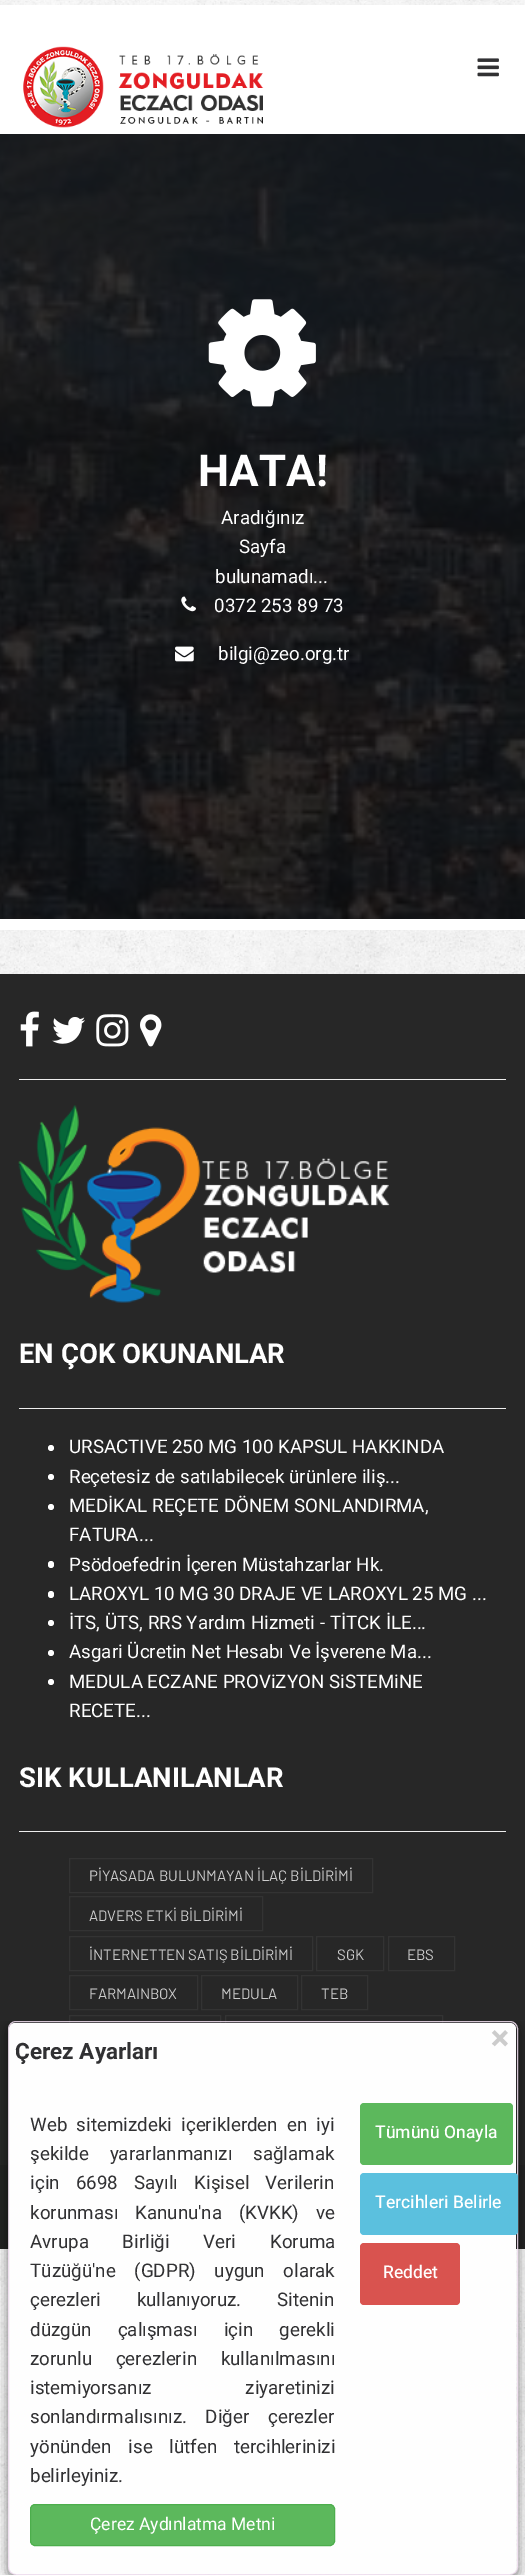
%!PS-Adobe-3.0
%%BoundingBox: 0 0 525 2575
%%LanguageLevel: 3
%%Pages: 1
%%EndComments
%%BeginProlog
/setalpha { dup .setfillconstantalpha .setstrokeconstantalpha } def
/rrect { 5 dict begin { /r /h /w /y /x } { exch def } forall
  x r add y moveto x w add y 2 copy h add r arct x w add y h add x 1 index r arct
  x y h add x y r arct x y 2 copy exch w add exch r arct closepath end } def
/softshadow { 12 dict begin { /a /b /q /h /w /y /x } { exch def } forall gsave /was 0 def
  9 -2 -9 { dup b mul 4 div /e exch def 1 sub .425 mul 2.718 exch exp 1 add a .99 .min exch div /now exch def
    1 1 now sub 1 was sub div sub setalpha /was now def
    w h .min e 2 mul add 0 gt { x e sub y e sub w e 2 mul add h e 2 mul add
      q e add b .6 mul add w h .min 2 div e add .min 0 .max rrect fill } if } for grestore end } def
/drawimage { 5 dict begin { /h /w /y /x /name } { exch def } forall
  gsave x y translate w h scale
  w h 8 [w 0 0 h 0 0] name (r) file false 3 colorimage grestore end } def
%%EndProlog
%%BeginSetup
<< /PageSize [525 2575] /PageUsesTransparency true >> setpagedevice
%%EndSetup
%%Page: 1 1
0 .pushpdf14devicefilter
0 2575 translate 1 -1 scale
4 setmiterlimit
1 setgray
0 0 525 2575 rectfill
(images/1.raw) 0 0 525 2575 drawimage
0 5 525 925 rectfill
(images/2.raw) 23 46 241 82 drawimage
(images/3.raw) 477 58 22 19 drawimage
(images/4.raw) 0 134 525 785 drawimage
(images/5.raw) 208 299 108 108 drawimage
(images/6.raw) 181 596 15 16 drawimage
(images/7.raw) 175 646 19 16 drawimage
0.153 setgray
0 974 525 1191 rectfill
(images/8.raw) 20 1011 19 36 drawimage
(images/9.raw) 52 1017 33 27 drawimage
(images/10.raw) 96 1014 33 33 drawimage
(images/11.raw) 140 1014 22 33 drawimage
0.933 setgray
19 1079 487 1 rectfill
(images/12.raw) 18 1105 372 198 drawimage
19 1408 487 1 rectfill
1 setgray
newpath 51 1448 3 0 360 arc closepath fill
newpath 51 1477 3 0 360 arc closepath fill
newpath 51 1507 3 0 360 arc closepath fill
48 1561 6 7 3 rrect fill
48 1591 6 7 3 rrect fill
newpath 51 1623 3 0 360 arc closepath fill
newpath 51 1653 3 0 360 arc closepath fill
newpath 51 1682 3 0 360 arc closepath fill
0.933 setgray
19 1831 487 1 rectfill
0.2 setgray
69.5 1858.5 303 34 rectstroke
69.5 1896.5 193 34 rectstroke
69.5 1936.5 243 34 rectstroke
316.5 1936.5 67 34 rectstroke
388.5 1936.5 66 34 rectstroke
69.5 1975.5 128 34 rectstroke
201.5 1975.5 96 34 rectstroke
301.5 1975.5 66 34 rectstroke
69.5 2015.5 151 34 rectstroke
225.5 2015.5 217 34 rectstroke
0.137 setgray
0 2165 525 84 rectfill
gsave
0 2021 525 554 rectclip
newpath 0 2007 moveto 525 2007 lineto 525 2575 lineto 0 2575 lineto closepath 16 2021 moveto 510 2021 lineto 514.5 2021 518 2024.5 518 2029 curveto 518 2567 lineto 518 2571.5 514.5 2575 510 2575 curveto 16 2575 lineto 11.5 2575 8 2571.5 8 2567 curveto 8 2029 lineto 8 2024.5 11.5 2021 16 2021 curveto closepath eoclip newpath
0 setgray
8 2025 510 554 8 5.5 0.5 softshadow
grestore
0.996 setgray
9 2023 507 551 6 rrect fill
0.87 setalpha
0.933 0.867 0.933 setrgbcolor
8.5 2021.5 509 553 7.5 rrect stroke
1 setalpha
0.361 0.722 0.361 setrgbcolor
30.5 2504.5 304 41 4.5 rrect gsave fill grestore
0.298 0.682 0.298 setrgbcolor
stroke
0.361 0.722 0.361 setrgbcolor
360 2103 153 62 4 rrect fill
0.357 0.753 0.871 setrgbcolor
360 2173 158 62 4 rrect fill
0.851 0.325 0.31 setrgbcolor
360 2243 100 62 4 rrect fill
/Heebo-Bold [44 0 0 -44 0 0] selectfont
1 setgray
198 486 moveto (HATA!) show
/Heebo-Regular [18.75 0 0 -18.75 0 0] selectfont
221 524 moveto (Aradığınız) show
239 553 moveto (Sayfa) show
215 583 moveto (bulunamadı...) show
214 612 moveto (0372 253 89 73) show
218 660 moveto (bilgi@zeo.org.tr) show
/Heebo-Bold [27.5 0 0 -27.5 0 0] selectfont
19 1363 moveto (EN ÇOK OKUNANLAR) show
/Heebo-Regular [18.75 0 0 -18.75 0 0] selectfont
69 1453 moveto (URSACTIVE 250 MG 100 KAPSUL HAKKINDA) show
69 1483 moveto (Reçetesiz de satılabilecek ürünlere iliş...) show
69 1512 moveto (MEDİKAL REÇETE DÖNEM SONLANDIRMA,) show
69 1541 moveto (FATURA...) show
69 1571 moveto (Psödoefedrin İçeren Müstahzarlar Hk.) show
69 1600 moveto (LAROXYL 10 MG 30 DRAJE VE LAROXYL 25 MG ...) show
69 1629 moveto (İTS, ÜTS, RRS Yardım Hizmeti - TİTCK İLE...) show
69 1658 moveto (Asgari Ücretin Net Hesabı Ve İşverene Ma...) show
69 1688 moveto (MEDULA ECZANE PROViZYON SiSTEMiNE) show
69 1717 moveto (RECETE...) show
/Heebo-Bold [27.5 0 0 -27.5 0 0] selectfont
19 1787 moveto (SIK KULLANILANLAR) show
/Barlow-Regular [15 0 0 -15 0 0] selectfont
0.8 setgray
89 1881 moveto (PİYASADA BULUNMAYAN İLAÇ BİLDİRİMİ) show
89 1921 moveto (ADVERS ETKİ BİLDİRİMİ) show
89 1960 moveto (İNTERNETTEN SATIŞ BİLDİRİMİ) show
337 1960 moveto (SGK) show
407 1960 moveto (EBS) show
89 1999 moveto (FARMAINBOX) show
221 1999 moveto (MEDULA) show
321 1999 moveto (TEB) show
/Heebo-Bold [35 0 0 -35 0 0] selectfont
490 2050 moveto (×) show
/Heebo-Bold [22.5 0 0 -22.5 0 0] selectfont
0.192 0.192 0.2 setrgbcolor
15 2059 moveto (Çerez Ayarları) show
/Heebo-Regular [18.75 0 0 -18.75 0 0] selectfont
30 2131 moveto 4.5 0 32 (Web sitemizdeki içeriklerden en iyi) widthshow
30 2160 moveto 16 0 32 (şekilde yararlanmanızı sağlamak) widthshow
30 2189 moveto 11.5 0 32 (için 6698 Sayılı Kişisel Verilerin) widthshow
30 2219 moveto 12 0 32 (korunması Kanunu'na \(KVKK\) ve) widthshow
30 2248 moveto 29 0 32 (Avrupa Birliği Veri Koruma) widthshow
30 2277 moveto 14 0 32 (Tüzüğü'ne \(GDPR\) uygun olarak) widthshow
30 2306 moveto 31 0 32 (çerezleri kullanıyoruz. Sitenin) widthshow
30 2336 moveto 21.5 0 32 (düzgün çalışması için gerekli) widthshow
30 2365 moveto 19 0 32 (zorunlu çerezlerin kullanılmasını) widthshow
30 2394 moveto 89 0 32 (istemiyorsanız ziyaretinizi) widthshow
30 2423 moveto 14 0 32 (sonlandırmalısınız. Diğer çerezler) widthshow
30 2453 moveto 12 0 32 (yönünden ise lütfen tercihlerinizi) widthshow
30 2482 moveto (belirleyiniz.) show
/Heebo-Regular [17.5 0 0 -17.5 0 0] selectfont
1 setgray
90 2530 moveto (Çerez Aydınlatma Metni) show
/Heebo-Medium [17.5 0 0 -17.5 0 0] selectfont
375 2138 moveto (Tümünü Onayla) show
375 2208 moveto (Tercihleri Belirle) show
383 2278 moveto (Reddet) show
.poppdf14devicefilter showpage
%%EOF
